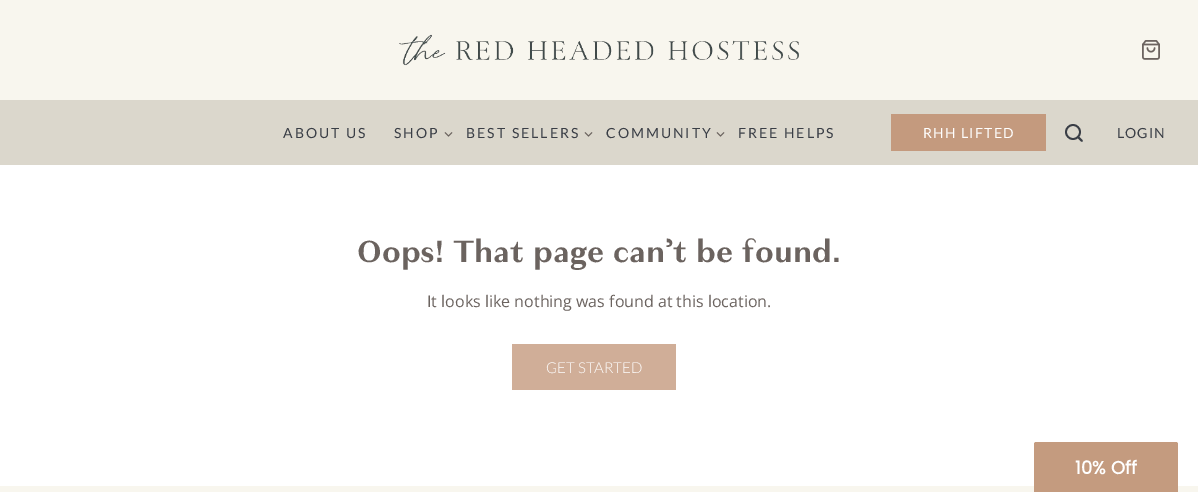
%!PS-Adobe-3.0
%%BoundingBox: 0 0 1198 492
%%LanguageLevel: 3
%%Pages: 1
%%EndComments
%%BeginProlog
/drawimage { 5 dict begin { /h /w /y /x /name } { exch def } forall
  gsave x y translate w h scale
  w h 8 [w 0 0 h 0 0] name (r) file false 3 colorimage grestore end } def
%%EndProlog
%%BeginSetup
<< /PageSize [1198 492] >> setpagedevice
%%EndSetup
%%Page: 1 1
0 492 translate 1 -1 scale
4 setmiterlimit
1 setgray
0 0 1198 492 rectfill
0.973 0.965 0.933 setrgbcolor
0 0 1198 100 rectfill
(images/1.raw) 399 34 400 32 drawimage
(images/2.raw) 1142 40 18 20 drawimage
0.859 0.843 0.8 setrgbcolor
0 100 1198 65 rectfill
0.42 0.388 0.373 setrgbcolor
newpath 452 132.5 moveto 448.5 136 lineto 445 132.5 lineto stroke
newpath 592 132.5 moveto 588.5 136 lineto 585 132.5 lineto stroke
newpath 724 132.5 moveto 720.5 136 lineto 717 132.5 lineto stroke
0.769 0.604 0.494 setrgbcolor
891 114 155 37 rectfill
0.227 0.243 0.275 setrgbcolor
1.8 setlinewidth
newpath 1073 132 7 0 360 arc closepath stroke
1 setlinecap
1 setlinejoin
newpath 1082 141 moveto 1078 137 lineto stroke
0.816 0.682 0.596 setrgbcolor
512 344 164 46 rectfill
0.973 0.965 0.933 setrgbcolor
0 486 1198 6 rectfill
0.769 0.608 0.498 setrgbcolor
newpath 1036 442 moveto 1176 442 lineto 1177 442 1178 443 1178 444 curveto 1178 492 lineto 1034 492 lineto 1034 444 lineto 1034 443 1035 442 1036 442 curveto closepath fill
/Lato-Regular [14 0 0 -14 0 0] selectfont
0.227 0.243 0.275 setrgbcolor
283 138 moveto 2 0 (ABOUT US) ashow
394 138 moveto 2 0 (SHOP) ashow
466 138 moveto 2 0 (BEST SELLERS) ashow
606 138 moveto 2 0 (COMMUNITY) ashow
738 138 moveto 2 0 (FREE HELPS) ashow
1 setgray
923 138 moveto 1.25 0 (RHH LIFTED) ashow
0.227 0.243 0.275 setrgbcolor
1117 138 moveto 1 0 (LOGIN) ashow
/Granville-Bold [32 0 0 -32 0 0] selectfont
0.42 0.388 0.373 setrgbcolor
357 262 moveto (Oops! That page can’t be found.) show
/OpenSans-Regular [16 0 0 -16 0 0] selectfont
427 307 moveto (It looks like nothing was found at this location.) show
/Lato-Light [15 0 0 -15 0 0] selectfont
1 setgray
546 373 moveto (GET STARTED) show
/Poppins-Bold [18 0 0 -18 0 0] selectfont
1075 474 moveto (10% Off) show
showpage
%%EOF
